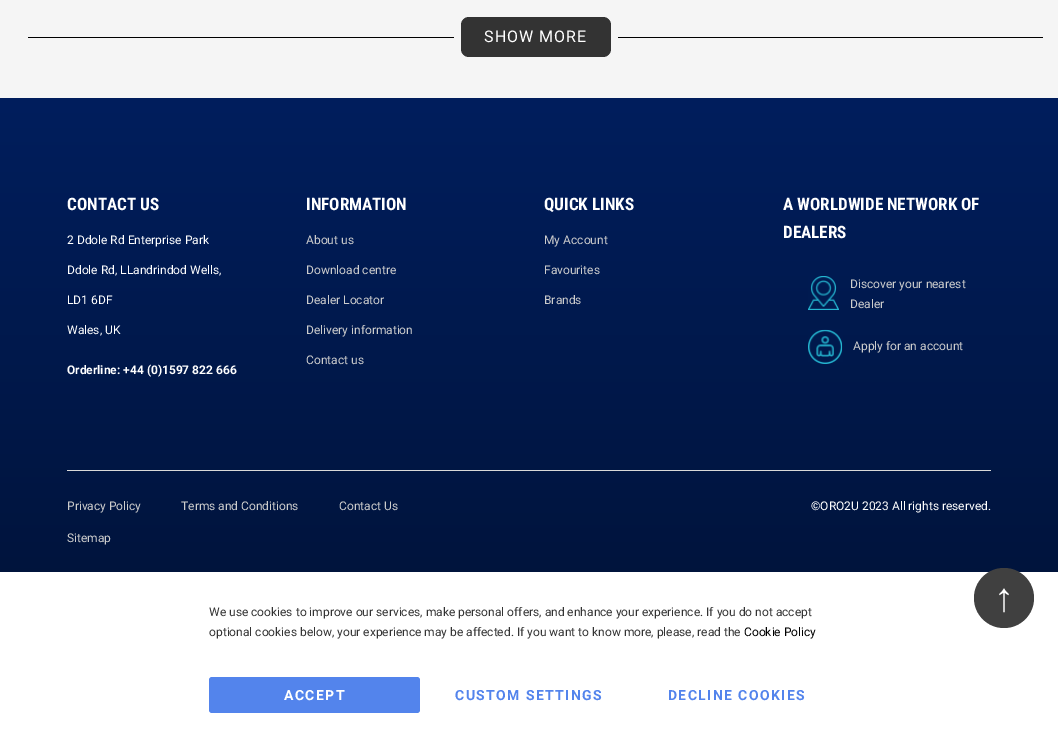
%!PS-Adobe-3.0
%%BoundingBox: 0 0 1058 748
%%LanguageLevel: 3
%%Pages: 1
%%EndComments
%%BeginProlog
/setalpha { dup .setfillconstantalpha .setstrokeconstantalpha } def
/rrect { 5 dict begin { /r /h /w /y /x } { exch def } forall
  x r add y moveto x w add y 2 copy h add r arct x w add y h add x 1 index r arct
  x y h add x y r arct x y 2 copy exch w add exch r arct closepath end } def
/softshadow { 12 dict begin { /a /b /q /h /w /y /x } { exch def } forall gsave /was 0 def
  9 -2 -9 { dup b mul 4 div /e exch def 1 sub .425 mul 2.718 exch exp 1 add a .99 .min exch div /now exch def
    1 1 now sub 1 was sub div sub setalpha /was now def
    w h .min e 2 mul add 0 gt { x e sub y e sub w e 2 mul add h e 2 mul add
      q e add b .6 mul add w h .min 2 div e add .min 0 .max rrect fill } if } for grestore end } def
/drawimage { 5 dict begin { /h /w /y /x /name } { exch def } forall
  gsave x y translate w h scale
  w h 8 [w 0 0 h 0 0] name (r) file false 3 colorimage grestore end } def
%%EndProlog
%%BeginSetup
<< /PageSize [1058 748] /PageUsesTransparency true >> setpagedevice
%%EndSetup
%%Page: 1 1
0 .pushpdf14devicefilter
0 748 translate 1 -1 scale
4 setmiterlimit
0.961 setgray
0 0 1058 748 rectfill
0 setgray
28 37 1015 1 rectfill
0.2 setgray
461 17 150 40 8 rrect fill
0.961 setgray
454 37 7 1 rectfill
611 37 7 1 rectfill
gsave newpath 0 98 moveto 1058 98 lineto 1058 572 lineto 0 572 lineto closepath clip newpath
<< /ShadingType 2 /ColorSpace /DeviceRGB /Coords [529 98 529 626] /Extend [true true] /Function << /FunctionType 2 /Domain [0 1] /C0 [0 0.118 0.365] /C1 [0 0.075 0.227] /N 1 >> >> shfill grestore
(images/1.raw) 808 276 31 34 drawimage
(images/2.raw) 808 329 35 35 drawimage
0.851 setgray
67 470 924 1 rectfill
0 setgray
0 570 1058 176 0 9 0.06 softshadow
1 setgray
0 572 1058 176 rectfill
0.251 setgray
newpath 1004 598 30 0 360 arc closepath fill
0.325 0.518 0.925 setrgbcolor
209 677 211 36 3 rrect fill
/Roboto-Regular [16 0 0 -16 0 0] selectfont
1 setgray
484 42 moveto 1 0 (SHOW MORE) ashow
/RobotoCondensed-Bold [17.1 0 0 -17.1 0 0] selectfont
67 210 moveto (CONTACT US) show
/Roboto-Regular [12 0 0 -12 0 0] selectfont
67 244 moveto (2 Ddole Rd Enterprise Park) show
67 274 moveto (Ddole Rd, LLandrindod Wells,) show
67 304 moveto (LD1 6DF) show
67 334 moveto (Wales, UK) show
/Roboto-Bold [12 0 0 -12 0 0] selectfont
67 374 moveto (Orderline: +44 \(0\)1597 822 666) show
/RobotoCondensed-Bold [17.1 0 0 -17.1 0 0] selectfont
306 210 moveto (INFORMATION) show
/Roboto-Regular [12 0 0 -12 0 0] selectfont
0.8 setgray
306 244 moveto (About us) show
306 274 moveto (Download centre) show
306 304 moveto (Dealer Locator) show
306 334 moveto (Delivery information) show
306 364 moveto (Contact us) show
/RobotoCondensed-Bold [17.1 0 0 -17.1 0 0] selectfont
1 setgray
544 210 moveto (QUICK LINKS) show
/Roboto-Regular [12 0 0 -12 0 0] selectfont
0.8 setgray
544 244 moveto (My Account) show
544 274 moveto (Favourites) show
544 304 moveto (Brands) show
/RobotoCondensed-Bold [17.1 0 0 -17.1 0 0] selectfont
1 setgray
783 210 moveto (A WORLDWIDE NETWORK OF) show
783 238 moveto (DEALERS) show
/Roboto-Regular [12 0 0 -12 0 0] selectfont
0.8 setgray
850 288 moveto (Discover your nearest) show
850 308 moveto (Dealer) show
853 350 moveto (Apply for an account) show
67 510 moveto (Privacy Policy) show
181 510 moveto (Terms and Conditions) show
339 510 moveto (Contact Us) show
67 542 moveto (Sitemap) show
1 setgray
811 510 moveto (©ORO2U 2023 All rights reserved.) show
/LiberationSans-Regular [40 0 0 -40 0 0] selectfont
994 611 moveto (↑) show
/Roboto-Regular [12 0 0 -12 0 0] selectfont
0.2 setgray
209 616 moveto (We use cookies to improve our services, make personal offers, and enhance your experience. If you do not accept) show
209 636 moveto (optional cookies below, your experience may be affected. If you want to know more, please, read the) show
0 setgray
744 636 moveto (Cookie Policy) show
/Roboto-Bold [14 0 0 -14 0 0] selectfont
1 setgray
284 700 moveto 1.4 0 (ACCEPT) ashow
0.325 0.518 0.925 setrgbcolor
455 700 moveto 1.4 0 (CUSTOM SETTINGS) ashow
668 700 moveto 1.4 0 (DECLINE COOKIES) ashow
.poppdf14devicefilter showpage
%%EOF
